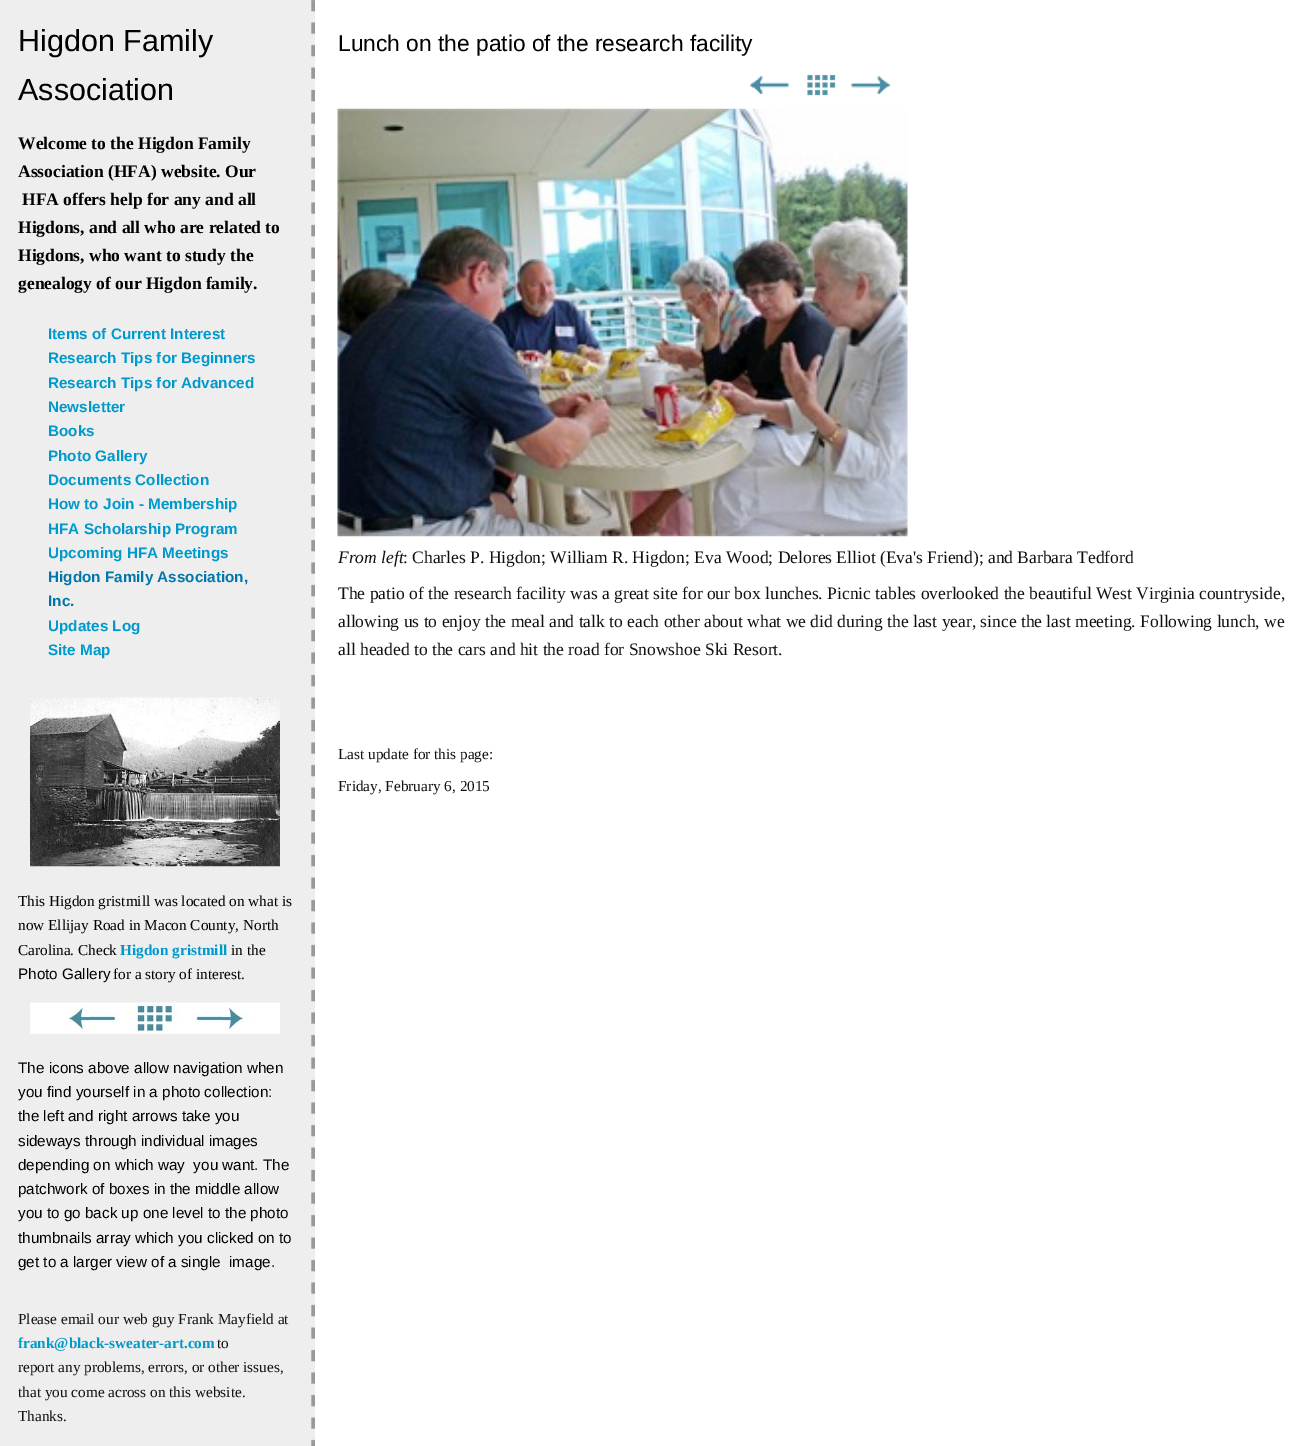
%!PS-Adobe-3.0
%%BoundingBox: 0 0 1314 1446
%%LanguageLevel: 3
%%Pages: 1
%%EndComments
%%BeginProlog
/drawimage { 5 dict begin { /h /w /y /x /name } { exch def } forall
  gsave x y translate w h scale
  w h 8 [w 0 0 h 0 0] name (r) file false 3 colorimage grestore end } def
%%EndProlog
%%BeginSetup
<< /PageSize [1314 1446] >> setpagedevice
%%EndSetup
%%Page: 1 1
0 1446 translate 1 -1 scale
4 setmiterlimit
1 setgray
0 0 1314 1446 rectfill
(images/1.raw) 0 0 315 1446 drawimage
(images/2.raw) 750 76 39 18 drawimage
(images/3.raw) 749 76 40 18 drawimage
(images/4.raw) 807 75 29 21 drawimage
(images/5.raw) 807 74 29 22 drawimage
(images/6.raw) 851 76 40 18 drawimage
(images/7.raw) 851 76 40 18 drawimage
(images/8.raw) 337 108 571 429 drawimage
(images/9.raw) 30 697 250 170 drawimage
(images/10.raw) 30 1002 250 32 drawimage
/LiberationSans-Regular [30.5 0 0 -30.5 0 0] selectfont
0 setgray
18 51 moveto (Higdon Family) show
18 100 moveto (Association) show
/LiberationSerif-Bold [17.5 0 0 -17.5 0 0] selectfont
18 149 moveto (Welcome to the Higdon Family) show
18 177 moveto (Association \(HFA\) website. Our) show
22 205 moveto (HFA offers help for any and all) show
18 233 moveto (Higdons, and all who are related to) show
18 261 moveto (Higdons, who want to study the) show
18 289 moveto (genealogy of our Higdon family.) show
/LiberationSans-Bold [15.25 0 0 -15.25 0 0] selectfont
0 0.6 0.8 setrgbcolor
48 339 moveto (Items of Current Interest) show
48 363 moveto (Research Tips for Beginners) show
48 388 moveto (Research Tips for Advanced) show
48 412 moveto (Newsletter) show
48 436 moveto (Books) show
48 461 moveto (Photo Gallery) show
48 485 moveto (Documents Collection) show
48 509 moveto (How to Join - Membership) show
48 534 moveto (HFA Scholarship Program) show
48 558 moveto (Upcoming HFA Meetings) show
0 0.467 0.667 setrgbcolor
48 582 moveto (Higdon Family Association,) show
48 606 moveto (Inc.) show
0 0.6 0.8 setrgbcolor
48 631 moveto (Updates Log) show
48 655 moveto (Site Map) show
/LiberationSans-Regular [22.75 0 0 -22.75 0 0] selectfont
0 setgray
338 51 moveto (Lunch on the patio of the research facility) show
/LiberationSerif-Italic [17.5 0 0 -17.5 0 0] selectfont
0.067 setgray
338 563 moveto (From left) show
/LiberationSerif-Regular [17.5 0 0 -17.5 0 0] selectfont
403 563 moveto (: Charles P. Higdon; William R. Higdon; Eva Wood; Delores Elliot \(Eva's Friend\); and Barbara Tedford) show
338 599 moveto (The patio of the research facility was a great site for our box lunches. Picnic tables overlooked the beautiful West Virginia countryside,) show
338 627 moveto (allowing us to enjoy the meal and talk to each other about what we did during the last year, since the last meeting. Following lunch, we) show
338 655 moveto (all headed to the cars and hit the road for Snowshoe Ski Resort.) show
/LiberationSerif-Regular [15.25 0 0 -15.25 0 0] selectfont
338 759 moveto (Last update for this page:) show
338 791 moveto (Friday, February 6, 2015) show
0 setgray
18 906 moveto (This Higdon gristmill was located on what is) show
18 930 moveto (now Ellijay Road in Macon County, North) show
18 955 moveto (Carolina. Check) show
/LiberationSerif-Bold [15.25 0 0 -15.25 0 0] selectfont
0 0.6 0.8 setrgbcolor
120 955 moveto (Higdon gristmill) show
/LiberationSerif-Regular [15.25 0 0 -15.25 0 0] selectfont
0 setgray
231 955 moveto (in the) show
/LiberationSans-Regular [15.25 0 0 -15.25 0 0] selectfont
18 979 moveto (Photo Gallery) show
/LiberationSerif-Regular [15.25 0 0 -15.25 0 0] selectfont
113 979 moveto (for a story of interest.) show
/LiberationSans-Regular [15.25 0 0 -15.25 0 0] selectfont
18 1073 moveto (The icons above allow navigation when) show
18 1097 moveto (you find yourself in a photo collection:) show
18 1121 moveto (the left and right arrows take you) show
18 1146 moveto (sideways through individual images) show
18 1170 moveto (depending on which way  you want. The) show
18 1194 moveto (patchwork of boxes in the middle allow) show
18 1218 moveto (you to go back up one level to the photo) show
18 1243 moveto (thumbnails array which you clicked on to) show
18 1267 moveto (get to a larger view of a single  image.) show
/LiberationSerif-Regular [15.25 0 0 -15.25 0 0] selectfont
0.067 setgray
18 1324 moveto (Please email our web guy Frank Mayfield at) show
/LiberationSerif-Bold [15.25 0 0 -15.25 0 0] selectfont
0 0.6 0.8 setrgbcolor
18 1348 moveto (frank@black-sweater-art.com) show
/LiberationSerif-Regular [15.25 0 0 -15.25 0 0] selectfont
0.067 setgray
217 1348 moveto (to) show
18 1372 moveto (report any problems, errors, or other issues,) show
18 1397 moveto (that you come across on this website.) show
18 1421 moveto (Thanks.) show
showpage
%%EOF
